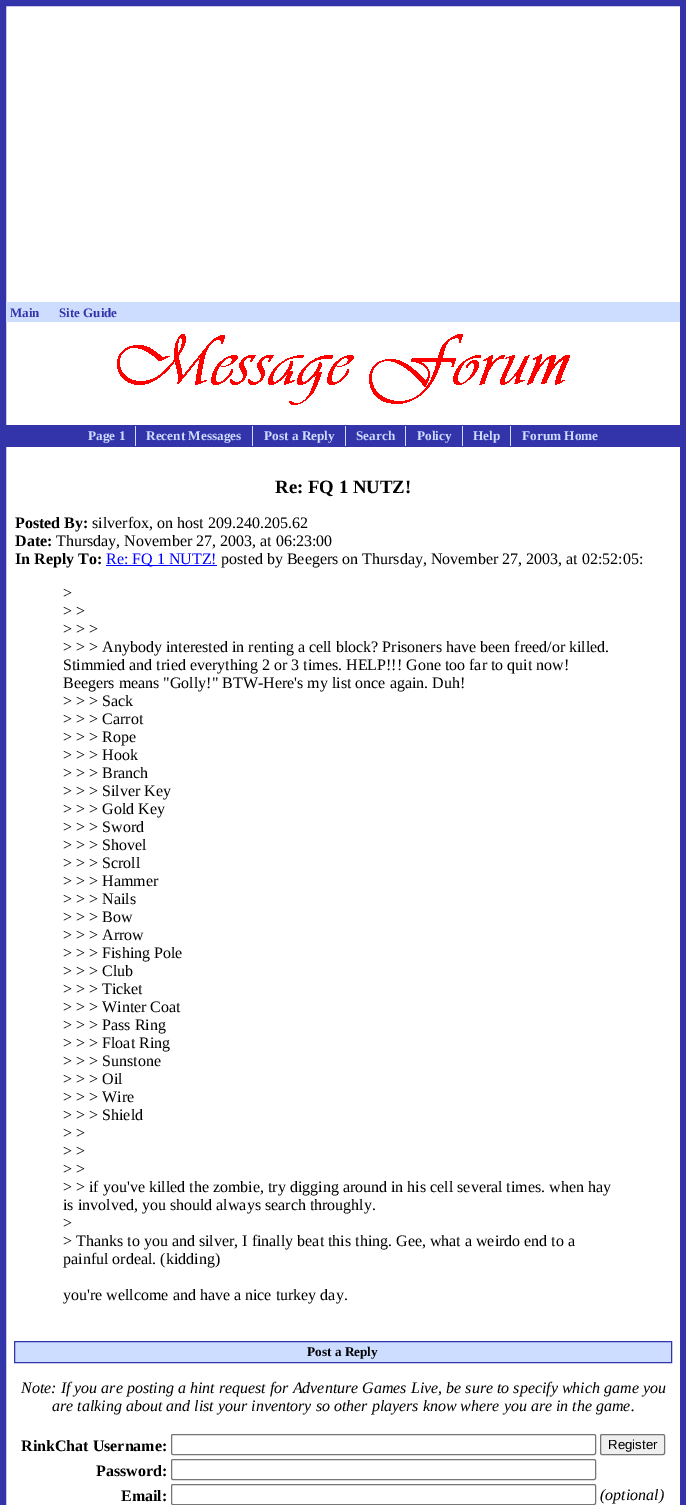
%!PS-Adobe-3.0
%%BoundingBox: 0 0 686 1505
%%LanguageLevel: 3
%%Pages: 1
%%EndComments
%%BeginProlog
/rrect { 5 dict begin { /r /h /w /y /x } { exch def } forall
  x r add y moveto x w add y 2 copy h add r arct x w add y h add x 1 index r arct
  x y h add x y r arct x y 2 copy exch w add exch r arct closepath end } def
/drawimage { 5 dict begin { /h /w /y /x /name } { exch def } forall
  gsave x y translate w h scale
  w h 8 [w 0 0 h 0 0] name (r) file false 3 colorimage grestore end } def
%%EndProlog
%%BeginSetup
<< /PageSize [686 1505] >> setpagedevice
%%EndSetup
%%Page: 1 1
0 1505 translate 1 -1 scale
4 setmiterlimit
1 setgray
0 0 686 1505 rectfill
0.2 0.2 0.667 setrgbcolor
6 setlinewidth
3 3 680 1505 rectstroke
0.8 0.867 1 setrgbcolor
6 302 674 20 rectfill
(images/1.raw) 117 334 453 71 drawimage
0.2 0.2 0.667 setrgbcolor
6 425 674 22 rectfill
0.8 0.867 1 setrgbcolor
135 426 1 20 rectfill
252 426 1 20 rectfill
345 426 1 20 rectfill
405 426 1 20 rectfill
462 426 1 20 rectfill
510 426 1 20 rectfill
0 0 1 setrgbcolor
106 565 111 1 rectfill
0.8 0.867 1 setrgbcolor
newpath 14.5 1341.5 moveto 671.5 1341.5 lineto 671.5 1362.5 lineto 14.5 1362.5 lineto closepath gsave fill grestore
0.2 0.2 0.667 setrgbcolor
1 setlinewidth
stroke
0.463 setgray
171.5 1434.5 424 20 1.5 rrect stroke
0.937 setgray
600.5 1434.5 64 20 1.5 rrect gsave fill grestore
0.463 setgray
stroke
171.5 1459.5 424 20 1.5 rrect stroke
171.5 1484.5 424 20 1.5 rrect stroke
/LiberationSerif-Bold [13 0 0 -13 0 0] selectfont
0.2 0.2 0.667 setrgbcolor
10 317 moveto (Main) show
59 317 moveto (Site Guide) show
/LiberationSerif-Bold [13.25 0 0 -13.25 0 0] selectfont
0.8 0.867 1 setrgbcolor
88 440 moveto (Page 1) show
146 440 moveto (Recent Messages) show
264 440 moveto (Post a Reply) show
356 440 moveto (Search) show
417 440 moveto (Policy) show
473 440 moveto (Help) show
522 440 moveto (Forum Home) show
/LiberationSerif-Bold [18.75 0 0 -18.75 0 0] selectfont
0 setgray
275 493 moveto (Re: FQ 1 NUTZ!) show
/LiberationSerif-Bold [16 0 0 -16 0 0] selectfont
15 528 moveto (Posted By:) show
/LiberationSerif-Regular [16 0 0 -16 0 0] selectfont
92 528 moveto (silverfox, on host 209.240.205.62) show
/LiberationSerif-Bold [16 0 0 -16 0 0] selectfont
15 546 moveto (Date:) show
/LiberationSerif-Regular [16 0 0 -16 0 0] selectfont
56 546 moveto (Thursday, November 27, 2003, at 06:23:00) show
/LiberationSerif-Bold [16 0 0 -16 0 0] selectfont
15 564 moveto (In Reply To:) show
/LiberationSerif-Regular [16 0 0 -16 0 0] selectfont
0 0 1 setrgbcolor
106 564 moveto (Re: FQ 1 NUTZ!) show
0 setgray
221 564 moveto (posted by Beegers on Thursday, November 27, 2003, at 02:52:05:) show
63 598 moveto (>) show
63 616 moveto (> >) show
63 634 moveto (> > >) show
63 652 moveto (> > > Anybody interested in renting a cell block? Prisoners have been freed/or killed.) show
63 670 moveto (Stimmied and tried everything 2 or 3 times. HELP!!! Gone too far to quit now!) show
63 688 moveto (Beegers means "Golly!" BTW-Here's my list once again. Duh!) show
63 706 moveto (> > > Sack) show
63 724 moveto (> > > Carrot) show
63 742 moveto (> > > Rope) show
63 760 moveto (> > > Hook) show
63 778 moveto (> > > Branch) show
63 796 moveto (> > > Silver Key) show
63 814 moveto (> > > Gold Key) show
63 832 moveto (> > > Sword) show
63 850 moveto (> > > Shovel) show
63 868 moveto (> > > Scroll) show
63 886 moveto (> > > Hammer) show
63 904 moveto (> > > Nails) show
63 922 moveto (> > > Bow) show
63 940 moveto (> > > Arrow) show
63 958 moveto (> > > Fishing Pole) show
63 976 moveto (> > > Club) show
63 994 moveto (> > > Ticket) show
63 1012 moveto (> > > Winter Coat) show
63 1030 moveto (> > > Pass Ring) show
63 1048 moveto (> > > Float Ring) show
63 1066 moveto (> > > Sunstone) show
63 1084 moveto (> > > Oil) show
63 1102 moveto (> > > Wire) show
63 1120 moveto (> > > Shield) show
63 1138 moveto (> >) show
63 1156 moveto (> >) show
63 1174 moveto (> >) show
63 1192 moveto (> > if you've killed the zombie, try digging around in his cell several times. when hay) show
63 1210 moveto (is involved, you should always search throughly.) show
63 1228 moveto (>) show
63 1246 moveto (> Thanks to you and silver, I finally beat this thing. Gee, what a weirdo end to a) show
63 1264 moveto (painful ordeal. \(kidding\)) show
63 1300 moveto (you're wellcome and have a nice turkey day.) show
/LiberationSerif-Bold [13.25 0 0 -13.25 0 0] selectfont
307 1356 moveto (Post a Reply) show
/LiberationSerif-Italic [16 0 0 -16 0 0] selectfont
21 1393 moveto (Note: If you are posting a hint request for Adventure Games Live, be sure to specify which game you) show
52 1411 moveto (are talking about and list your inventory so other players know where you are in the game.) show
/LiberationSerif-Bold [16 0 0 -16 0 0] selectfont
21 1451 moveto (RinkChat Username:) show
/LiberationSans-Regular [13.25 0 0 -13.25 0 0] selectfont
608 1449 moveto (Register) show
/LiberationSerif-Bold [16 0 0 -16 0 0] selectfont
96 1476 moveto (Password:) show
121 1501 moveto (Email:) show
/LiberationSerif-Italic [16 0 0 -16 0 0] selectfont
600 1500 moveto (\(optional\)) show
showpage
%%EOF
